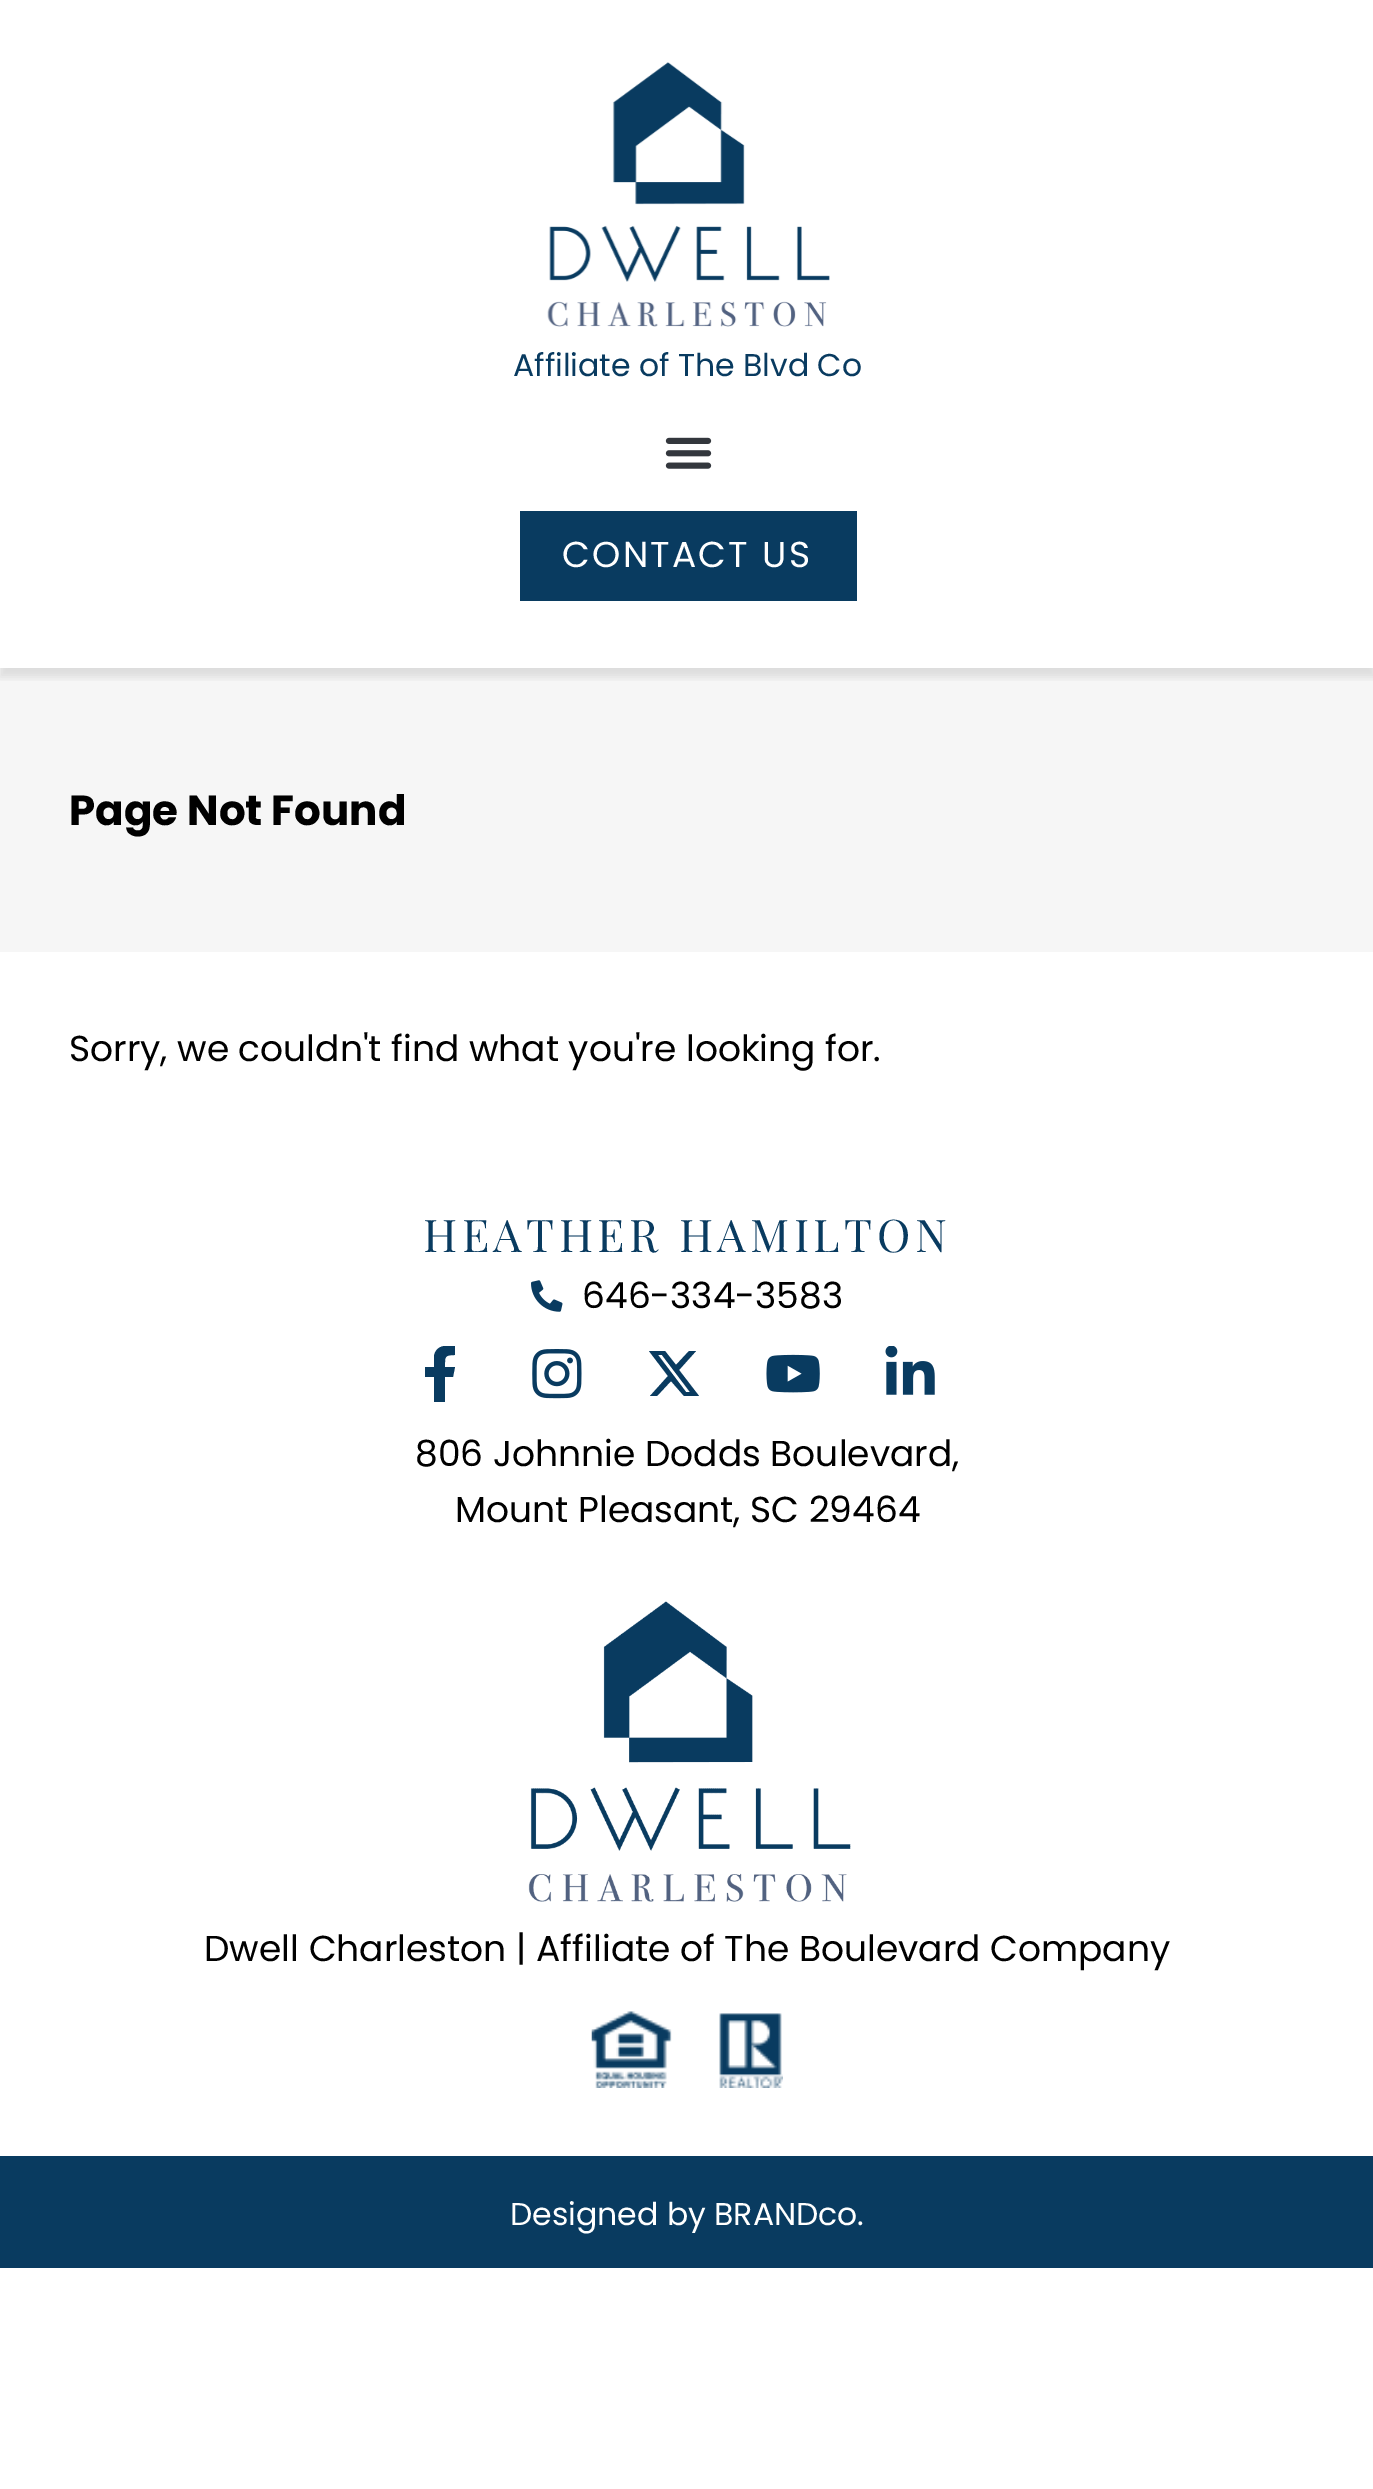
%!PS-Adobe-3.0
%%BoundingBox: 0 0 1373 2489
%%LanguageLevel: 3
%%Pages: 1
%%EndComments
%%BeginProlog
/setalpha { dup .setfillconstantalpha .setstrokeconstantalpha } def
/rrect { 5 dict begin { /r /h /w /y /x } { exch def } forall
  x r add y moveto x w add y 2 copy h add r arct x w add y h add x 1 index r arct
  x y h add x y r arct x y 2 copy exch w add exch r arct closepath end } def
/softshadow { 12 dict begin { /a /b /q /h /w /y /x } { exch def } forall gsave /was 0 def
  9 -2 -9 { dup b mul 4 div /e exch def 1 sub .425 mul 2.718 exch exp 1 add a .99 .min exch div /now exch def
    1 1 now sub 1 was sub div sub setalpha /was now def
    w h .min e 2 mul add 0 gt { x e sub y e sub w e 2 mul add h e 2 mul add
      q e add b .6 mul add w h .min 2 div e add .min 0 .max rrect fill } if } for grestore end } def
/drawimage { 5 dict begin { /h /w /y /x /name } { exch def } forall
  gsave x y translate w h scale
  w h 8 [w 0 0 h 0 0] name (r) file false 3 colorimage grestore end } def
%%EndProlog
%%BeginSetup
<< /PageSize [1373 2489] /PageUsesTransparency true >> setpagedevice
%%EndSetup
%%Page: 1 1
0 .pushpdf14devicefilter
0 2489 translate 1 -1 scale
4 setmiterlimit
1 setgray
0 0 1373 2489 rectfill
0.965 setgray
0 668 1373 284 rectfill
gsave
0 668 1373 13 rectclip
0 setgray
0 9 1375 668 0 4.5 0.1 softshadow
grestore
(images/1.raw) 547 62 283 265 drawimage
(images/2.raw) 665 437 47 32 drawimage
0.035 0.231 0.376 setrgbcolor
520 511 337 90 rectfill
(images/3.raw) 531 1280 32 32 drawimage
gsave
412 1346 56 56 rectclip
newpath 453 1377 moveto 455 1367 lineto 445 1367 lineto 445 1357 444 1355 455 1355 curveto 455 1346 lineto 446 1345 436 1345 434 1356 curveto 434 1367 lineto 425 1367 lineto 425 1377 lineto 434 1377 lineto 434 1402 lineto 445 1402 lineto 445 1377 lineto closepath fill
grestore
(images/4.raw) 532 1349 50 50 drawimage
newpath 689 1351 moveto 696 1351 lineto 679 1370 lineto 699 1396 lineto 684 1396 lineto 671 1381 lineto 657 1396 lineto 650 1396 lineto 668 1376 lineto 649 1351 lineto 665 1351 lineto 676 1365 lineto closepath 686 1392 moveto 690 1392 lineto 662 1355 lineto 658 1355 lineto closepath fill
(images/5.raw) 766 1354 54 39 drawimage
(images/6.raw) 885 1346 50 49 drawimage
(images/7.raw) 528 1601 323 301 drawimage
(images/8.raw) 591 2011 192 77 drawimage
0 2156 1373 112 rectfill
/Poppins-Regular [31.5 0 0 -31.5 0 0] selectfont
513 376 moveto (Affiliate of The Blvd Co) show
/Poppins-Regular [36 0 0 -36 0 0] selectfont
1 setgray
562 567 moveto 2.25 0 (CONTACT US) ashow
/Poppins-Bold [42 0 0 -42 0 0] selectfont
0 setgray
69 825 moveto (Page Not Found) show
/Poppins-Regular [36 0 0 -36 0 0] selectfont
69 1061 moveto (Sorry, we couldn't find what you're looking for.) show
/PlayfairDisplay-Regular [45 0 0 -45 0 0] selectfont
0.035 0.231 0.376 setrgbcolor
423 1252 moveto 4.5 0 (HEATHER HAMILTON) ashow
/Poppins-Regular [36 0 0 -36 0 0] selectfont
0 setgray
582 1308 moveto (646-334-3583) show
415 1466 moveto (806 Johnnie Dodds Boulevard,) show
455 1522 moveto (Mount Pleasant, SC 29464) show
204 1961 moveto (Dwell Charleston | Affiliate of The Boulevard Company) show
/Poppins-Regular [31.5 0 0 -31.5 0 0] selectfont
1 setgray
510 2225 moveto (Designed by BRANDco.) show
.poppdf14devicefilter showpage
%%EOF
